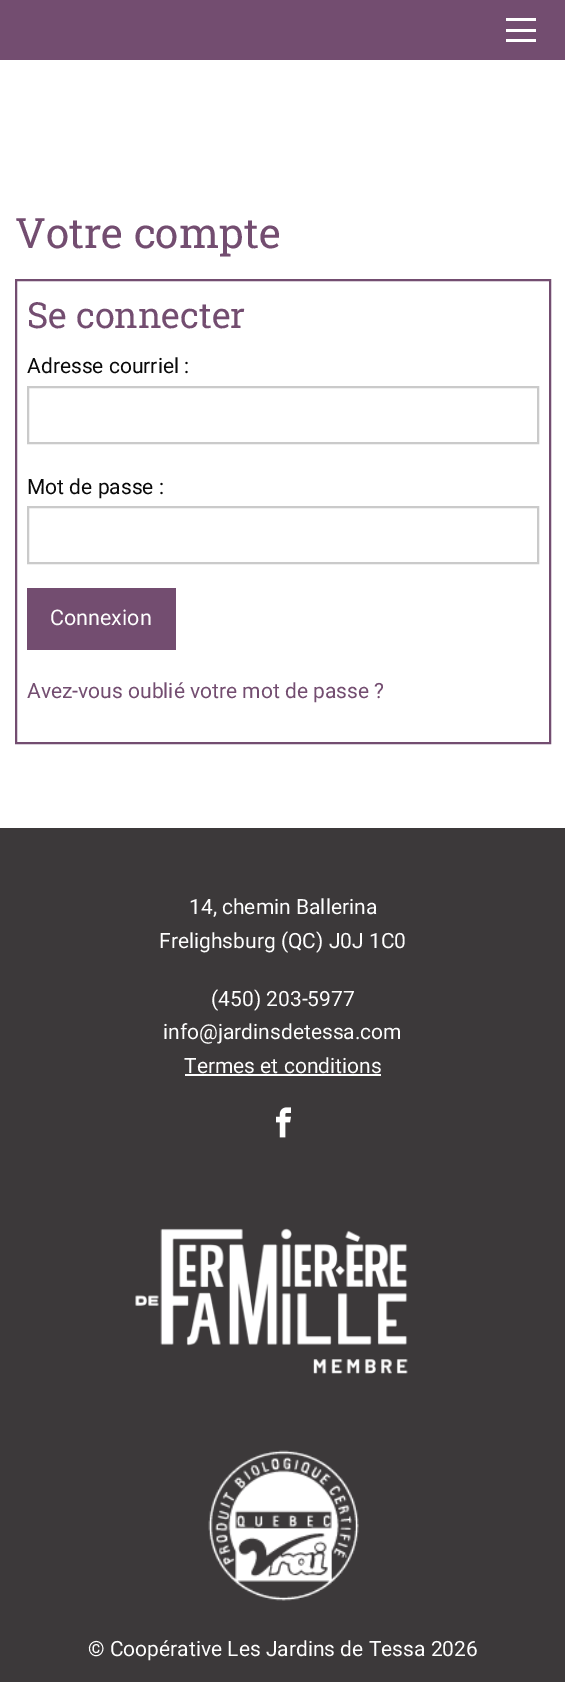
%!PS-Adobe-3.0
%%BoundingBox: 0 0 565 1682
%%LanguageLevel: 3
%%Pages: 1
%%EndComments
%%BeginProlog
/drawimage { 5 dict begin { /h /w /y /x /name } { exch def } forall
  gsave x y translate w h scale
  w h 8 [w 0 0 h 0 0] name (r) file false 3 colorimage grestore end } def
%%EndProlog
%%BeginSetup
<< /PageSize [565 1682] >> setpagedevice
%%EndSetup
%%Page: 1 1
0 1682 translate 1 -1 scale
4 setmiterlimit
1 setgray
0 0 565 1682 rectfill
0.451 0.302 0.439 setrgbcolor
0 0 565 60 rectfill
1 setgray
506 29 30 3 rectfill
506 18 30 3 rectfill
506 39 30 3 rectfill
0.451 0.302 0.439 setrgbcolor
2 setlinewidth
16 280 534 463 rectstroke
0.792 setgray
28 387 510 56 rectstroke
28 507 510 56 rectstroke
0.451 0.302 0.439 setrgbcolor
27 588 149 62 rectfill
0.235 0.224 0.227 setrgbcolor
0 828 565 854 rectfill
1 setgray
185 1074 196 2 rectfill
(images/1.raw) 276 1107 15 31 drawimage
(images/2.raw) 135 1228 273 146 drawimage
(images/3.raw) 208 1450 151 151 drawimage
/RobotoSlab-Regular [42 0 0 -42 0 0] selectfont
0.451 0.302 0.439 setrgbcolor
15 248 moveto (Votre compte) show
/RobotoSlab-Regular [36 0 0 -36 0 0] selectfont
27 328 moveto (Se connecter) show
/Roboto-Regular [21 0 0 -21 0 0] selectfont
0.039 setgray
27 373 moveto (Adresse courriel :) show
27 494 moveto (Mot de passe :) show
/Roboto-Regular [21.5 0 0 -21.5 0 0] selectfont
0.996 setgray
50 625 moveto (Connexion) show
/Roboto-Regular [21 0 0 -21 0 0] selectfont
0.451 0.302 0.439 setrgbcolor
27 698 moveto (Avez-vous oublié votre mot de passe ?) show
0.996 setgray
189 914 moveto (14, chemin Ballerina) show
159 948 moveto (Frelighsburg \(QC\) J0J 1C0) show
211 1006 moveto (\(450\) 203-5977) show
163 1039 moveto (info@jardinsdetessa.com) show
184 1073 moveto (Termes et conditions) show
88 1656 moveto (© Coopérative Les Jardins de Tessa 2026) show
showpage
%%EOF
